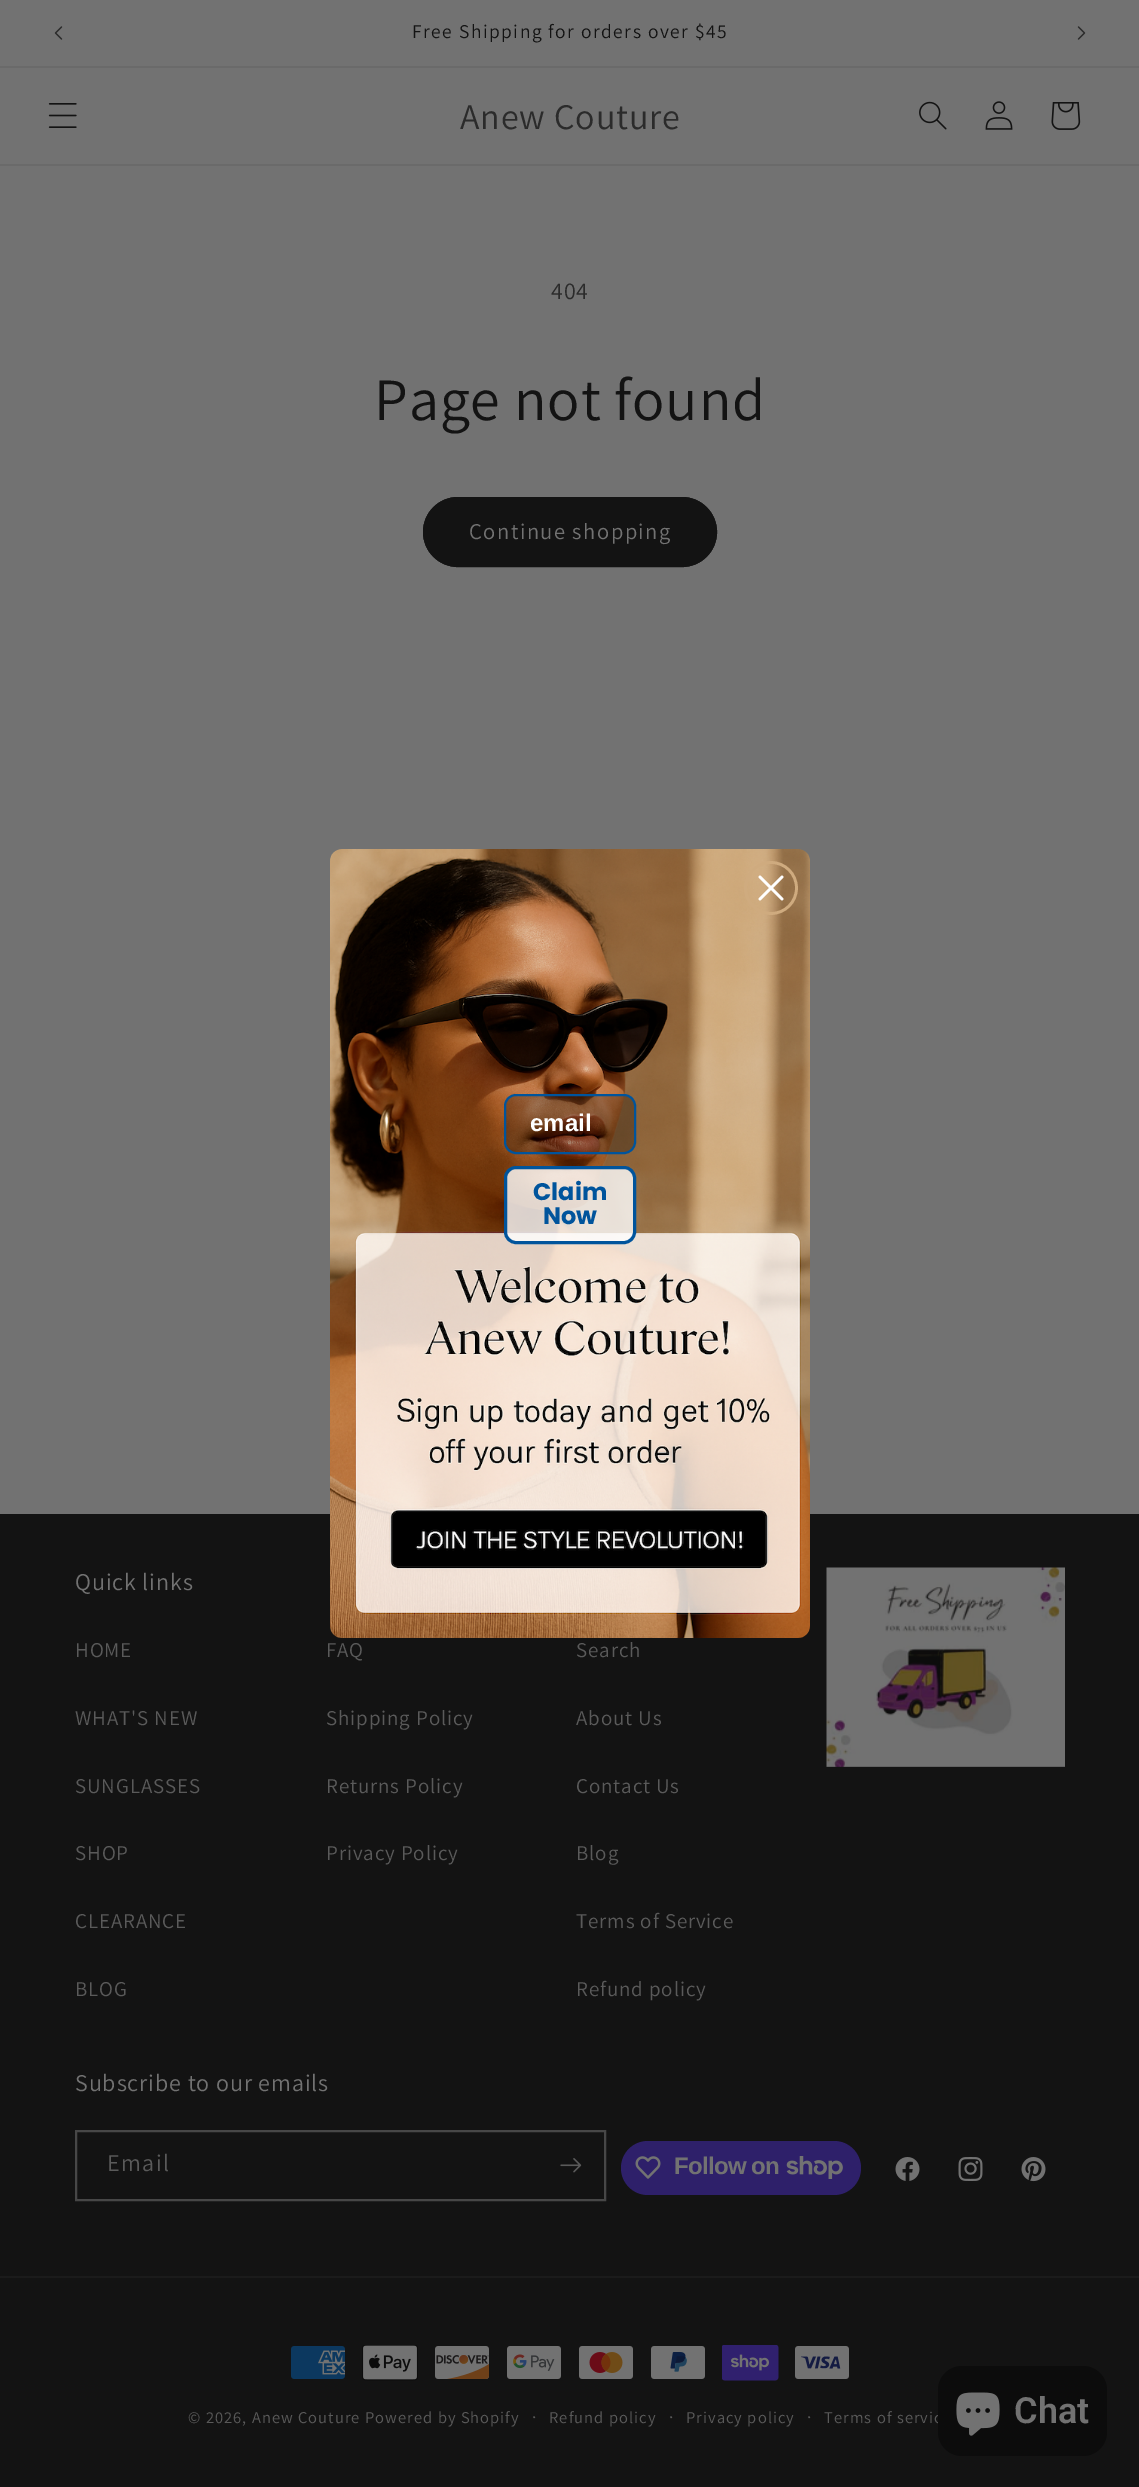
%!PS-Adobe-3.0
%%BoundingBox: 0 0 1139 2487
%%LanguageLevel: 3
%%Pages: 1
%%EndComments
%%BeginProlog
/setalpha { dup .setfillconstantalpha .setstrokeconstantalpha } def
/rrect { 5 dict begin { /r /h /w /y /x } { exch def } forall
  x r add y moveto x w add y 2 copy h add r arct x w add y h add x 1 index r arct
  x y h add x y r arct x y 2 copy exch w add exch r arct closepath end } def
/drawimage { 5 dict begin { /h /w /y /x /name } { exch def } forall
  gsave x y translate w h scale
  w h 8 [w 0 0 h 0 0] name (r) file false 3 colorimage grestore end } def
%%EndProlog
%%BeginSetup
<< /PageSize [1139 2487] /PageUsesTransparency true >> setpagedevice
%%EndSetup
%%Page: 1 1
0 .pushpdf14devicefilter
0 2487 translate 1 -1 scale
4 setmiterlimit
0.447 setgray
0 0 1139 2487 rectfill
0.416 setgray
0 66 1139 2 rectfill
(images/1.raw) 54 26 9 14 drawimage
(images/2.raw) 1077 26 9 14 drawimage
0 164 1139 2 rectfill
(images/3.raw) 48 103 29 25 drawimage
(images/4.raw) 919 101 28 29 drawimage
(images/5.raw) 985 101 28 29 drawimage
(images/6.raw) 1051 102 30 28 drawimage
0.075 setgray
423 497 294 70 35 rrect fill
2 setlinewidth
424 498 292 68 34 rrect stroke
0 1514 1139 973 rectfill
(images/7.raw) 330 849 480 789 drawimage
0.812 0.671 0.498 setrgbcolor
2.7 setlinewidth
newpath 771 888 25.5 0 360 arc closepath stroke
1 setgray
1 setlinecap
1 setlinejoin
newpath 760 877 moveto 782 899 lineto 760 899 moveto 782 877 lineto closepath stroke
0.25 setalpha
0 setgray
505 1095 130 58 11 rrect fill
1 setalpha
0 0.329 0.612 setrgbcolor
2 setlinewidth
0 setlinecap
0 setlinejoin
505 1095 130 58 11 rrect stroke
0.8 setalpha
1 setgray
505.5 1167.5 129 75 10.5 rrect fill
1 setalpha
0 0.329 0.612 setrgbcolor
3 setlinewidth
505.5 1167.5 129 75 10.5 rrect stroke
(images/8.raw) 826 1567 239 200 drawimage
0.278 setgray
2 setlinewidth
76 2131 529 69 rectstroke
(images/9.raw) 560 2158 22 15 drawimage
0.18 0.125 0.416 setrgbcolor
621 2141 240 54 27 rrect fill
(images/10.raw) 635 2156 26 23 drawimage
(images/11.raw) 786 2156 57 23 drawimage
(images/12.raw) 895 2157 25 24 drawimage
(images/13.raw) 958 2157 25 24 drawimage
(images/14.raw) 1021 2157 25 25 drawimage
0.106 setgray
0 2276 1139 2 rectfill
(images/15.raw) 291 2346 54 33 drawimage
(images/16.raw) 362 2345 56 36 drawimage
(images/17.raw) 435 2346 55 33 drawimage
(images/18.raw) 507 2346 54 33 drawimage
(images/19.raw) 579 2346 54 33 drawimage
(images/20.raw) 651 2346 54 33 drawimage
(images/21.raw) 722 2345 57 36 drawimage
(images/22.raw) 795 2346 54 33 drawimage
/Assistant-Regular [19.5 0 0 -19.5 0 0] selectfont
0.075 setgray
412 38 moveto 1.5 0 (Free Shipping for orders over $45) ashow
/Assistant-Regular [36 0 0 -36 0 0] selectfont
0.169 setgray
460 129 moveto 0.9 0 (Anew Couture) ashow
/Assistant-Regular [24 0 0 -24 0 0] selectfont
551 299 moveto 0.9 0 (404) ashow
/Assistant-Regular [60 0 0 -60 0 0] selectfont
0.075 setgray
374 420 moveto 0.9 0 (Page not found) ashow
/Assistant-Regular [22.5 0 0 -22.5 0 0] selectfont
0.447 setgray
469 539 moveto 1.5 0 (Continue shopping) ashow
/LiberationSans-Bold [24 0 0 -24 0 0] selectfont
1 setgray
530 1131 moveto (email) show
/Poppins-Bold [24 0 0 -24 0 0] selectfont
0 0.329 0.612 setrgbcolor
533 1200 moveto (Claim) show
543 1224 moveto (Now) show
/Assistant-Regular [24 0 0 -24 0 0] selectfont
0.447 setgray
75 1590 moveto 0.9 0 (Quick links) ashow
/Assistant-Regular [21 0 0 -21 0 0] selectfont
0.353 setgray
75 1657 moveto 0.9 0 (HOME) ashow
75 1725 moveto 0.9 0 (WHAT'S NEW) ashow
75 1793 moveto 0.9 0 (SUNGLASSES) ashow
75 1860 moveto 0.9 0 (SHOP) ashow
75 1928 moveto 0.9 0 (CLEARANCE) ashow
75 1996 moveto 0.9 0 (BLOG) ashow
326 1657 moveto 0.9 0 (FAQ) ashow
326 1725 moveto 0.9 0 (Shipping Policy) ashow
326 1793 moveto 0.9 0 (Returns Policy) ashow
326 1860 moveto 0.9 0 (Privacy Policy) ashow
576 1657 moveto 0.9 0 (Search) ashow
576 1725 moveto 0.9 0 (About Us) ashow
576 1793 moveto 0.9 0 (Contact Us) ashow
576 1860 moveto 0.9 0 (Blog) ashow
576 1928 moveto 0.9 0 (Terms of Service) ashow
576 1996 moveto 0.9 0 (Refund policy) ashow
/Assistant-Regular [24 0 0 -24 0 0] selectfont
0.447 setgray
75 2091 moveto 0.9 0 (Subscribe to our emails) ashow
0.353 setgray
107 2171 moveto 1.5 0 (Email) ashow
/LiberationSans-Bold [24 0 0 -24 0 0] selectfont
0.447 setgray
674 2174 moveto -0.75 0 (Follow on) ashow
/Assistant-Regular [16.5 0 0 -16.5 0 0] selectfont
0.353 setgray
188 2423 moveto 1.05 0 (© 2026, Anew Couture) ashow
365 2423 moveto 1.05 0 (Powered by Shopify) ashow
/Assistant-Regular [18 0 0 -18 0 0] selectfont
532 2423 moveto 1.05 0 (·) ashow
/Assistant-Regular [16.5 0 0 -16.5 0 0] selectfont
549 2423 moveto 1.05 0 (Refund policy) ashow
/Assistant-Regular [18 0 0 -18 0 0] selectfont
669 2423 moveto 1.05 0 (·) ashow
/Assistant-Regular [16.5 0 0 -16.5 0 0] selectfont
686 2423 moveto 1.05 0 (Privacy policy) ashow
/Assistant-Regular [18 0 0 -18 0 0] selectfont
807 2423 moveto 1.05 0 (·) ashow
/Assistant-Regular [16.5 0 0 -16.5 0 0] selectfont
824 2423 moveto 1.05 0 (Terms of servic) ashow
0.047 setgray
938 2366 169 90 24 rrect fill
(images/23.raw) 956 2392 44 44 drawimage
/Roboto-SemiBold [36 0 0 -36 0 0] selectfont
0.447 setgray
1014 2423 moveto (Chat) show
.poppdf14devicefilter showpage
%%EOF
